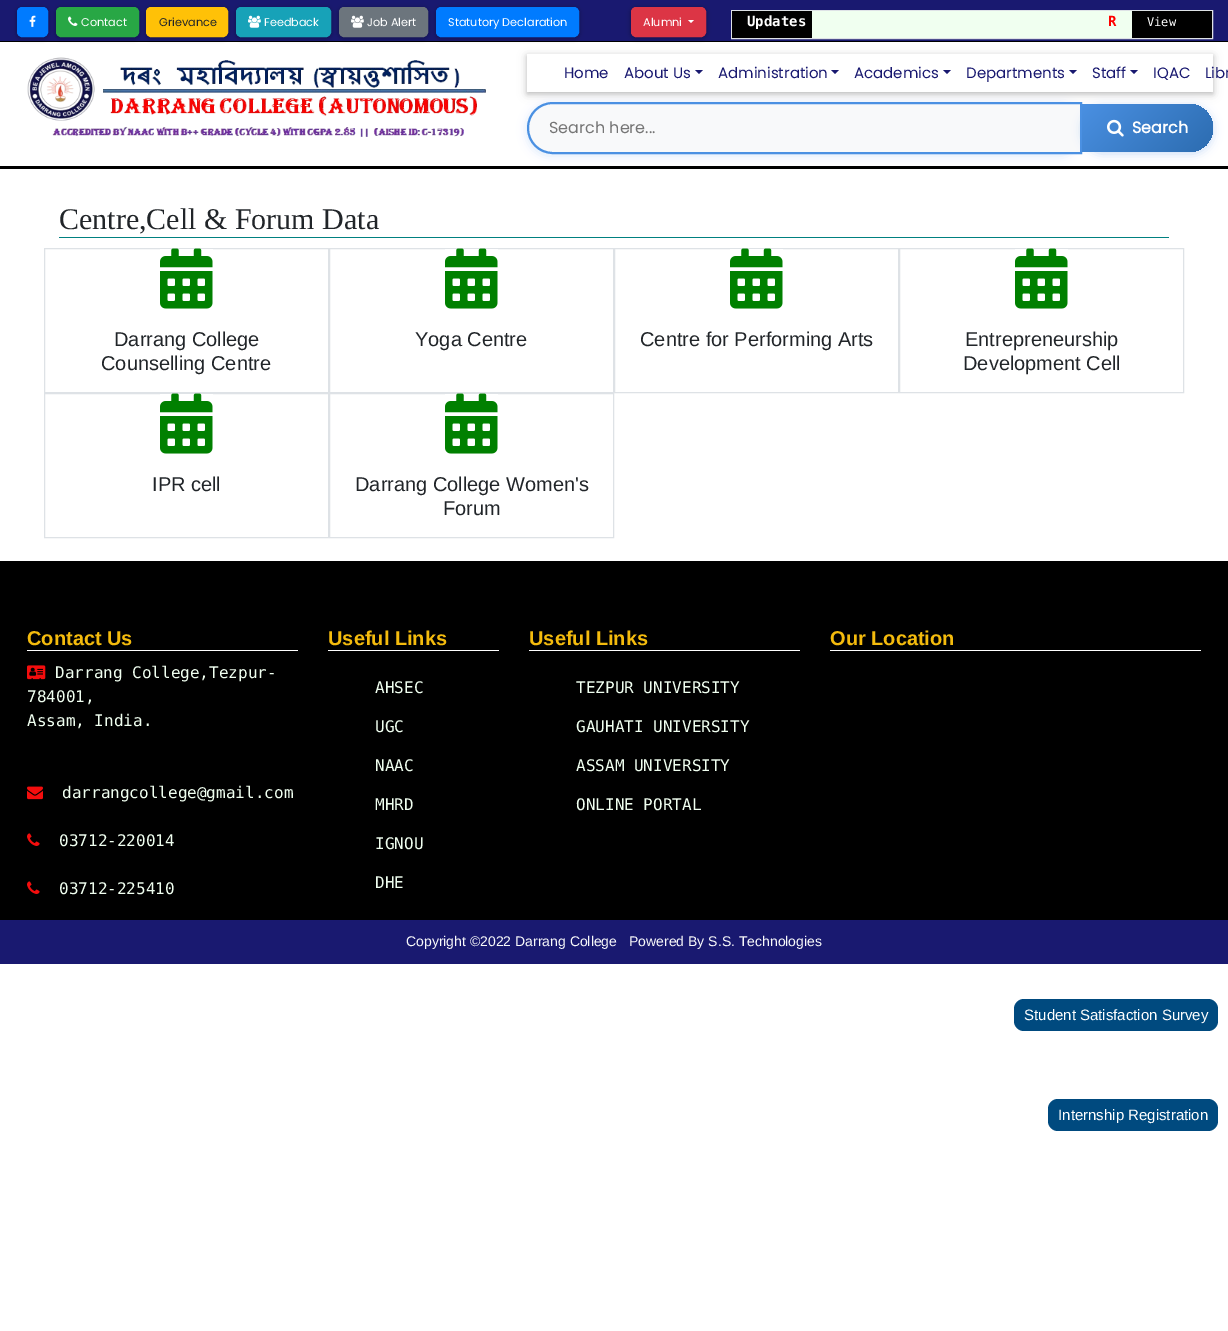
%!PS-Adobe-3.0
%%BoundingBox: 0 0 1228 1331
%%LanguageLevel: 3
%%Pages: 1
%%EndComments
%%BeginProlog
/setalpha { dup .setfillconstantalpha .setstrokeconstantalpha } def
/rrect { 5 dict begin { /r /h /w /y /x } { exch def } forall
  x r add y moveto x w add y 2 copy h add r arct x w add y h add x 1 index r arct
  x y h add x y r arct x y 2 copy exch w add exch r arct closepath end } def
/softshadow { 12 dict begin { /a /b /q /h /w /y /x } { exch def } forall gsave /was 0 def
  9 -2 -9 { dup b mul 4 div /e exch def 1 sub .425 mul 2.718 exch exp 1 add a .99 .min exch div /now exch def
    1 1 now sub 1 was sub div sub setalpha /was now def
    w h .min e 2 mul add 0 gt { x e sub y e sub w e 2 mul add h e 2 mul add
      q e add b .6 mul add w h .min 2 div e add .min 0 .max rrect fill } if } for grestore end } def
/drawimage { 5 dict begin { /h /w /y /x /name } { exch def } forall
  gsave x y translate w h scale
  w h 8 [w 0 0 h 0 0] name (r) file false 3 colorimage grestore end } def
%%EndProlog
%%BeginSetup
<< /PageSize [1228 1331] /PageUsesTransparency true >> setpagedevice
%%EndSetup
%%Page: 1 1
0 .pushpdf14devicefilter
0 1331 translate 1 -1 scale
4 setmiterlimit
1 setgray
0 0 1228 1331 rectfill
0.098 0.098 0.439 setrgbcolor
0 0 1228 41 rectfill
0 setgray
0 41 1228 1 rectfill
17 8 31 30 5 2.5 0.35 softshadow
0 0.482 1 setrgbcolor
17.5 7.5 30 29 4.5 rrect gsave fill grestore
stroke
(images/1.raw) 29 15 7 12 drawimage
0 setgray
56 8 83 30 5 2.5 0.35 softshadow
0.157 0.655 0.271 setrgbcolor
56.5 7.5 82 29 4.5 rrect gsave fill grestore
stroke
(images/2.raw) 68 16 10 10 drawimage
0 setgray
146 8 82 30 5 2.5 0.35 softshadow
1 0.757 0.027 setrgbcolor
146.5 7.5 81 29 4.5 rrect gsave fill grestore
stroke
0 setgray
236 8 95 30 5 2.5 0.35 softshadow
0.09 0.635 0.722 setrgbcolor
236.5 7.5 94 29 4.5 rrect gsave fill grestore
stroke
(images/3.raw) 248 15 13 13 drawimage
0 setgray
339 8 89 30 5 2.5 0.35 softshadow
0.424 0.459 0.49 setrgbcolor
339.5 7.5 88 29 4.5 rrect gsave fill grestore
stroke
(images/4.raw) 351 15 13 13 drawimage
0 setgray
436 8 143 30 5 2.5 0.35 softshadow
0 0.482 1 setrgbcolor
436.5 7.5 142 29 4.5 rrect gsave fill grestore
stroke
0 setgray
631 8 75 30 5 2.5 0.35 softshadow
0.863 0.208 0.271 setrgbcolor
631.5 7.5 74 29 4.5 rrect gsave fill grestore
stroke
1 setgray
newpath 688 20 moveto 694 20 lineto 691 23 lineto closepath fill
0.871 0.886 0.902 setrgbcolor
731.5 10.5 481 28 rectstroke
0 setgray
732 11 80 27 rectfill
0.941 1 0.941 setrgbcolor
812 11 320 27 rectfill
0 setgray
1132 11 80 27 rectfill
(images/5.raw) 27 57 459 80 drawimage
gsave
newpath 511 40 moveto 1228 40 lineto 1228 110 lineto 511 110 lineto closepath 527 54 moveto 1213 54 lineto 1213 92 lineto 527 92 lineto closepath eoclip newpath
527 56 686 38 0 5 0.12 softshadow
grestore
gsave
newpath 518 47 moveto 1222 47 lineto 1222 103 lineto 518 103 lineto closepath 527 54 moveto 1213 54 lineto 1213 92 lineto 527 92 lineto closepath eoclip newpath
527 56 686 38 0 2.5 0.16 softshadow
grestore
0.098 0.098 0.439 setrgbcolor
newpath 695 70 moveto 703 70 lineto 699 74 lineto closepath fill
newpath 831 70 moveto 839 70 lineto 835 74 lineto closepath fill
newpath 943 70 moveto 951 70 lineto 947 74 lineto closepath fill
newpath 1069 70 moveto 1077 70 lineto 1073 74 lineto closepath fill
newpath 1130 70 moveto 1138 70 lineto 1134 74 lineto closepath fill
0 setgray
0 166 1228 3 rectfill
0.29 0.565 0.886 setrgbcolor
527 104 555 52 26 5 0.2 softshadow
0.973 0.976 0.98 setrgbcolor
newpath 553 103 moveto 1081 103 lineto 1081 153 lineto 553 153 lineto 539 153 528 142 528 128 curveto 528 114 539 103 553 103 curveto closepath gsave fill grestore
0.29 0.565 0.886 setrgbcolor
2 setlinewidth
stroke
1082 106 131 48 24 5 0.3 softshadow
gsave newpath 1082 104 moveto 1189 104 lineto 1202.5 104 1213 114.5 1213 128 curveto 1213 141.5 1202.5 152 1189 152 curveto 1082 152 lineto closepath clip newpath
<< /ShadingType 2 /ColorSpace /DeviceRGB /Coords [1103 83 1192 173] /Extend [true true] /Function << /FunctionType 2 /Domain [0 1] /C0 [0.29 0.565 0.886] /C1 [0.173 0.424 0.69] /N 1 >> >> shfill grestore
(images/6.raw) 1107 119 17 18 drawimage
0 0.502 0.502 setrgbcolor
59 237 1110 1 rectfill
0.871 0.886 0.902 setrgbcolor
1 setlinewidth
44.5 248.5 284 144 rectstroke
(images/7.raw) 160 248 53 61 drawimage
329.5 248.5 284 144 rectstroke
(images/7.raw) 445 248 53 61 drawimage
614.5 248.5 284 144 rectstroke
(images/7.raw) 730 248 53 61 drawimage
899.5 248.5 284 144 rectstroke
(images/7.raw) 1015 248 53 61 drawimage
44.5 393.5 284 144 rectstroke
(images/7.raw) 160 393 53 61 drawimage
329.5 393.5 284 144 rectstroke
(images/7.raw) 445 393 53 61 drawimage
0 setgray
0 561 1228 359 rectfill
1 setgray
27 650 271 1 rectfill
(images/8.raw) 27 665 19 15 drawimage
(images/9.raw) 27 786 16 14 drawimage
(images/10.raw) 27 833 13 13 drawimage
(images/10.raw) 27 881 13 13 drawimage
328 650 171 1 rectfill
529 650 271 1 rectfill
830 650 371 1 rectfill
0.098 0.098 0.439 setrgbcolor
0 920 1228 44 rectfill
0 0.29 0.498 setrgbcolor
1014 999 204 32 10 rrect fill
1048 1099 170 32 10 rrect fill
/Poppins-Regular [11.25 0 0 -11.25 0 0] selectfont
1 setgray
81 26 moveto (Contact) show
0.129 0.145 0.161 setrgbcolor
159 26 moveto (Grievance) show
1 setgray
264 26 moveto (Feedback) show
367 26 moveto (Job Alert) show
448 26 moveto (Statutory Declaration) show
643 26 moveto (Alumni) show
/DejaVuSansMono-Bold [14 0 0 -14 0 0] selectfont
747 26 moveto (Updates) show
1 0 0 setrgbcolor
1108 26 moveto (R) show
/DejaVuSansMono-Regular [12 0 0 -12 0 0] selectfont
1 setgray
1147 26 moveto (View) show
/Poppins-Regular [15 0 0 -15 0 0] selectfont
0.098 0.098 0.439 setrgbcolor
564 78 moveto (Home) show
624 78 moveto (About Us) show
718 78 moveto (Administration) show
854 78 moveto (Academics) show
966 78 moveto (Departments) show
1092 78 moveto (Staff) show
1153 78 moveto (IQAC) show
1205 78 moveto (Libr) show
/Poppins-Regular [16 0 0 -16 0 0] selectfont
0.459 setgray
549 133 moveto (Search here...) show
/Poppins-Bold [16 0 0 -16 0 0] selectfont
1 setgray
1132 133 moveto (Search) show
/LiberationSerif-Regular [30 0 0 -30 0 0] selectfont
0.129 0.145 0.161 setrgbcolor
59 229 moveto (Centre,Cell & Forum Data) show
/LiberationSans-Regular [20 0 0 -20 0 0] selectfont
114 346 moveto (Darrang College) show
101 370 moveto (Counselling Centre) show
415 346 moveto (Yoga Centre) show
640 346 moveto (Centre for Performing Arts) show
965 346 moveto (Entrepreneurship) show
963 370 moveto (Development Cell) show
152 491 moveto (IPR cell) show
355 491 moveto (Darrang College Women's) show
443 515 moveto (Forum) show
/LiberationSans-Bold [20 0 0 -20 0 0] selectfont
0.957 0.733 0.051 setrgbcolor
27 645 moveto (Contact Us) show
/DejaVuSansMono-Regular [16 0 0 -16 0 0] selectfont
0.941 1 0.941 setrgbcolor
55 678 moveto (Darrang College,Tezpur-) show
27 702 moveto (784001,) show
27 726 moveto (Assam, India.) show
62 798 moveto (darrangcollege@gmail.com) show
59 846 moveto (03712-220014) show
59 894 moveto (03712-225410) show
/LiberationSans-Bold [20 0 0 -20 0 0] selectfont
0.957 0.733 0.051 setrgbcolor
328 645 moveto (Useful Links) show
/DejaVuSansMono-Regular [16 0 0 -16 0 0] selectfont
0.941 1 0.941 setrgbcolor
375 693 moveto (AHSEC) show
375 732 moveto (UGC) show
375 771 moveto (NAAC) show
375 810 moveto (MHRD) show
375 849 moveto (IGNOU) show
375 888 moveto (DHE) show
/LiberationSans-Bold [20 0 0 -20 0 0] selectfont
0.957 0.733 0.051 setrgbcolor
529 645 moveto (Useful Links) show
/DejaVuSansMono-Regular [16 0 0 -16 0 0] selectfont
0.941 1 0.941 setrgbcolor
576 693 moveto (TEZPUR UNIVERSITY) show
576 732 moveto (GAUHATI UNIVERSITY) show
576 771 moveto (ASSAM UNIVERSITY) show
576 810 moveto (ONLINE PORTAL) show
/LiberationSans-Bold [20 0 0 -20 0 0] selectfont
0.957 0.733 0.051 setrgbcolor
830 645 moveto (Our Location) show
/LiberationSans-Regular [14 0 0 -14 0 0] selectfont
0.973 0.976 0.98 setrgbcolor
406 946 moveto (Copyright ©2022 Darrang College) show
629 946 moveto (Powered By S.S. Technologies) show
/LiberationSans-Regular [15 0 0 -15 0 0] selectfont
1 setgray
1024 1020 moveto (Student Satisfaction Survey) show
1058 1120 moveto (Internship Registration) show
.poppdf14devicefilter showpage
%%EOF
